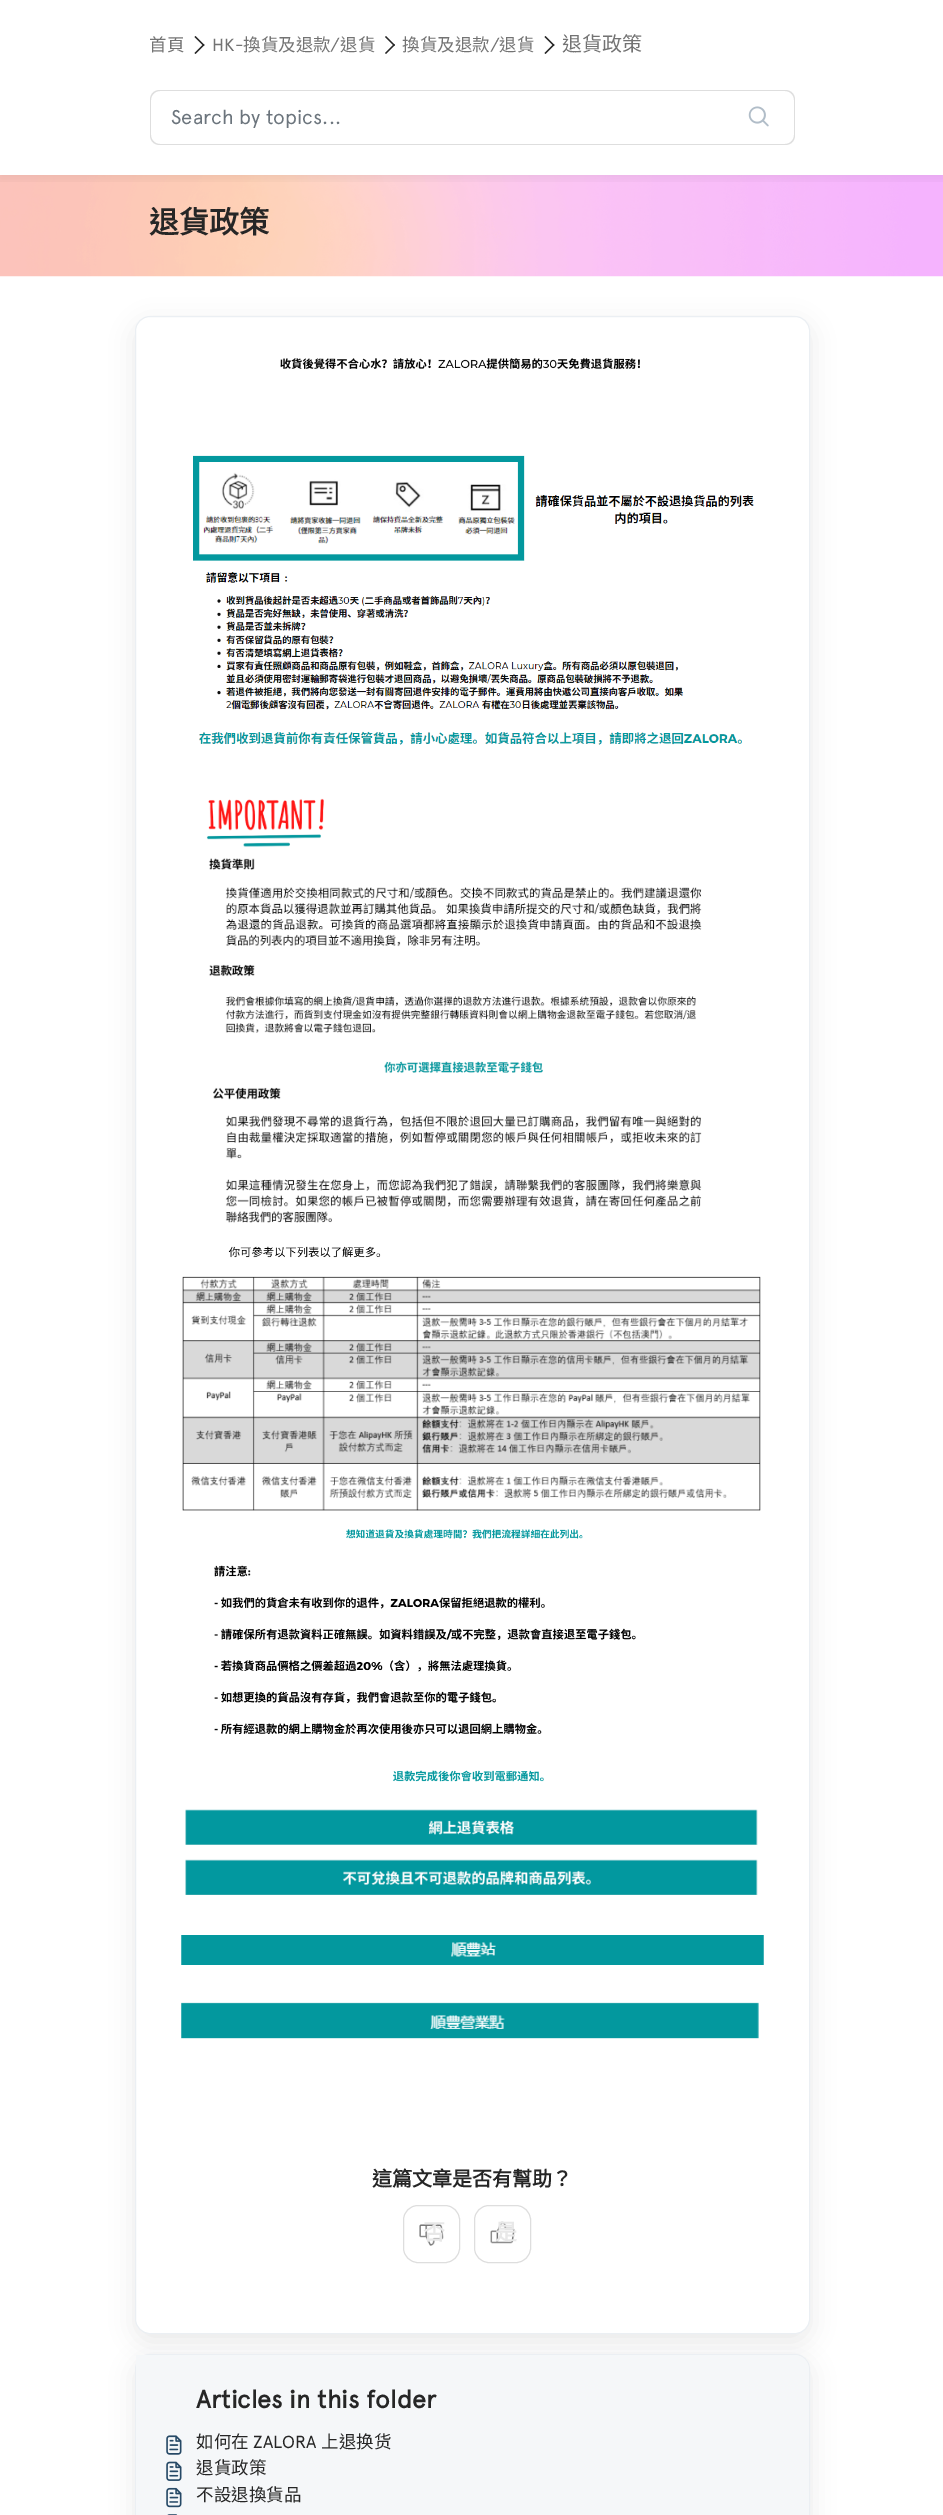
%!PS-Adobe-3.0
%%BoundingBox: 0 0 943 2515
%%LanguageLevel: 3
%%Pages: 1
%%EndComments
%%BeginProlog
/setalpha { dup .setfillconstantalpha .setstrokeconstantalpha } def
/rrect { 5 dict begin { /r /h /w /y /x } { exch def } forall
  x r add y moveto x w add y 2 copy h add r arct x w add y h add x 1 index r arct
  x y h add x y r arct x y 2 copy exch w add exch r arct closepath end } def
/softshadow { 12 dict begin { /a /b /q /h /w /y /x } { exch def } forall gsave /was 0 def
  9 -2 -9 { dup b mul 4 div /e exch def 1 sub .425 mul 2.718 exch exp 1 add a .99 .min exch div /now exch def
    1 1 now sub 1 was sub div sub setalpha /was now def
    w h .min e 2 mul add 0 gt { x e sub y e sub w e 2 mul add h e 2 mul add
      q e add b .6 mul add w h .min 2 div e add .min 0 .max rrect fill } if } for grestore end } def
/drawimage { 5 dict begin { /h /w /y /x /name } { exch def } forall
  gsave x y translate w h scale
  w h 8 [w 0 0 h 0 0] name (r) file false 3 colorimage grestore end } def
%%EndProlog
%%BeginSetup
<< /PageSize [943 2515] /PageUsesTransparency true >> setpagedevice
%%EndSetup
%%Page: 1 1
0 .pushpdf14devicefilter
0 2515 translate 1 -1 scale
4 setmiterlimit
1 setgray
0 0 943 2515 rectfill
(images/2.raw) 0 175 943 102 drawimage
gsave
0 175 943 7 rectclip
0.149 setgray
0 3 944 175 0 6 0.08 softshadow
grestore
0.149 setgray
newpath 194.5 37 moveto 195.5 36 lineto 204.5 45 lineto 203.5 46 lineto closepath fill
newpath 194.5 53 moveto 203.5 44 lineto 204.5 45 lineto 195.5 54 lineto closepath fill
newpath 385 37 moveto 386 36 lineto 395 45 lineto 394 46 lineto closepath fill
newpath 385 53 moveto 394 44 lineto 395 45 lineto 386 54 lineto closepath fill
newpath 544.5 37 moveto 545.5 36 lineto 554.5 45 lineto 553.5 46 lineto closepath fill
newpath 544.5 53 moveto 553.5 44 lineto 554.5 45 lineto 545.5 54 lineto closepath fill
0.871 setgray
newpath 160 90 moveto 725 90 lineto 725 145 lineto 160 145 lineto 154 145 150 141 150 135 curveto 150 100 lineto 150 94 154 90 160 90 curveto closepath 160 91 moveto 725 91 lineto 725 144 lineto 160 144 lineto 155 144 151 140 151 135 curveto 151 100 lineto 151 95 155 91 160 91 curveto closepath eofill
1 setgray
newpath 724 90 moveto 785 90 lineto 790.5 90 795 94.5 795 100 curveto 795 135 lineto 795 140.5 790.5 145 785 145 curveto 724 145 lineto closepath fill
0.871 setgray
newpath 724 90 moveto 785 90 lineto 791 90 795 94 795 100 curveto 795 135 lineto 795 141 791 145 785 145 curveto 724 145 lineto closepath 724 91 moveto 785 91 lineto 790 91 794 95 794 100 curveto 794 135 lineto 794 140 790 144 785 144 curveto 724 144 lineto closepath eofill
(images/1.raw) 748 106 21 21 drawimage
gsave
newpath 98 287 moveto 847 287 lineto 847 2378 lineto 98 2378 lineto closepath 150 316 moveto 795 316 lineto 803.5 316 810 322.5 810 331 curveto 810 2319 lineto 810 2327.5 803.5 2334 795 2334 curveto 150 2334 lineto 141.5 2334 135 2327.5 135 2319 curveto 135 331 lineto 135 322.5 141.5 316 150 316 curveto closepath eoclip newpath
0.153 0.192 0.227 setrgbcolor
135 324 675 2017 15 12 0.1 softshadow
grestore
0.922 0.937 0.953 setrgbcolor
135.5 316.5 674 2017 14.5 rrect stroke
(images/3.raw) 280 358 360 11 drawimage
(images/4.raw) 193 455 561 290 drawimage
(images/5.raw) 206 798 496 275 drawimage
(images/6.raw) 213 1087 489 136 drawimage
(images/7.raw) 228 1246 153 12 drawimage
(images/8.raw) 182 1276 579 235 drawimage
(images/9.raw) 346 1529 237 10 drawimage
(images/10.raw) 214 1565 422 217 drawimage
(images/11.raw) 185 1809 573 36 drawimage
(images/12.raw) 185 1859 573 36 drawimage
(images/13.raw) 181 1935 583 30 drawimage
(images/14.raw) 181 2002 578 37 drawimage
(images/15.raw) 419 2224 25 22 drawimage
0.871 setgray
403.5 2205.5 56 57 14.5 rrect stroke
(images/16.raw) 490 2221 25 23 drawimage
474.5 2205.5 56 57 14.5 rrect stroke
0.153 0.192 0.227 setrgbcolor
135 2361 675 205 15 12 0.1 softshadow
0.922 0.937 0.953 setrgbcolor
135.5 2354.5 674 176 14.5 rrect stroke
0.961 0.969 0.976 setrgbcolor
newpath 136 2355 moveto 794 2355 lineto 802.5 2355 809 2361.5 809 2370 curveto 809 2515 lineto 809 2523.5 802.5 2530 794 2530 curveto 136 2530 lineto closepath fill
(images/17.raw) 166 2435 16 20 drawimage
(images/18.raw) 166 2461 16 20 drawimage
(images/19.raw) 166 2487 16 21 drawimage
(images/20.raw) 167 2514 11 1 drawimage
/NotoSansCJKTC-Regular [17.5 0 0 -17.5 0 0] selectfont
0.451 setgray
149 51 moveto (首頁) show
/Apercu-Regular [17.5 0 0 -17.5 0 0] selectfont
212 51 moveto (HK-) show
/NotoSansCJKTC-Regular [17.5 0 0 -17.5 0 0] selectfont
243 51 moveto (換貨及退款) show
/Apercu-Regular [17.5 0 0 -17.5 0 0] selectfont
330 51 moveto (/) show
/NotoSansCJKTC-Regular [17.5 0 0 -17.5 0 0] selectfont
340 51 moveto (退貨) show
402 51 moveto (換貨及退款) show
/Apercu-Regular [17.5 0 0 -17.5 0 0] selectfont
490 51 moveto (/) show
/NotoSansCJKTC-Regular [17.5 0 0 -17.5 0 0] selectfont
499 51 moveto (退貨) show
/NotoSansCJKTC-Regular [20 0 0 -20 0 0] selectfont
562 51 moveto (退貨政策) show
/Apercu-Regular [20 0 0 -20 0 0] selectfont
0.424 0.459 0.49 setrgbcolor
171 124 moveto (Search by topics...) show
/NotoSansCJKTC-Bold [30 0 0 -30 0 0] selectfont
0.149 setgray
149 233 moveto (退貨政策) show
/NotoSansCJKTC-Bold [20 0 0 -20 0 0] selectfont
372 2186 moveto (這篇文章是否有幫助？) show
/NotoSansCJKTC-Bold [22 0 0 -22 0 0] selectfont
0.91 setgray
423 2240 moveto (否) show
495 2240 moveto (是) show
/Apercu-Bold [25 0 0 -25 0 0] selectfont
0.149 setgray
196 2408 moveto (Articles in this folder) show
/NotoSansCJKTC-Regular [17.5 0 0 -17.5 0 0] selectfont
196 2448 moveto (如何在) show
/Apercu-Regular [17.5 0 0 -17.5 0 0] selectfont
253 2448 moveto (ZALORA) show
/NotoSansCJKTC-Regular [17.5 0 0 -17.5 0 0] selectfont
321 2448 moveto (上退换货) show
196 2474 moveto (退貨政策) show
196 2501 moveto (不設退換貨品) show
.poppdf14devicefilter showpage
%%EOF
